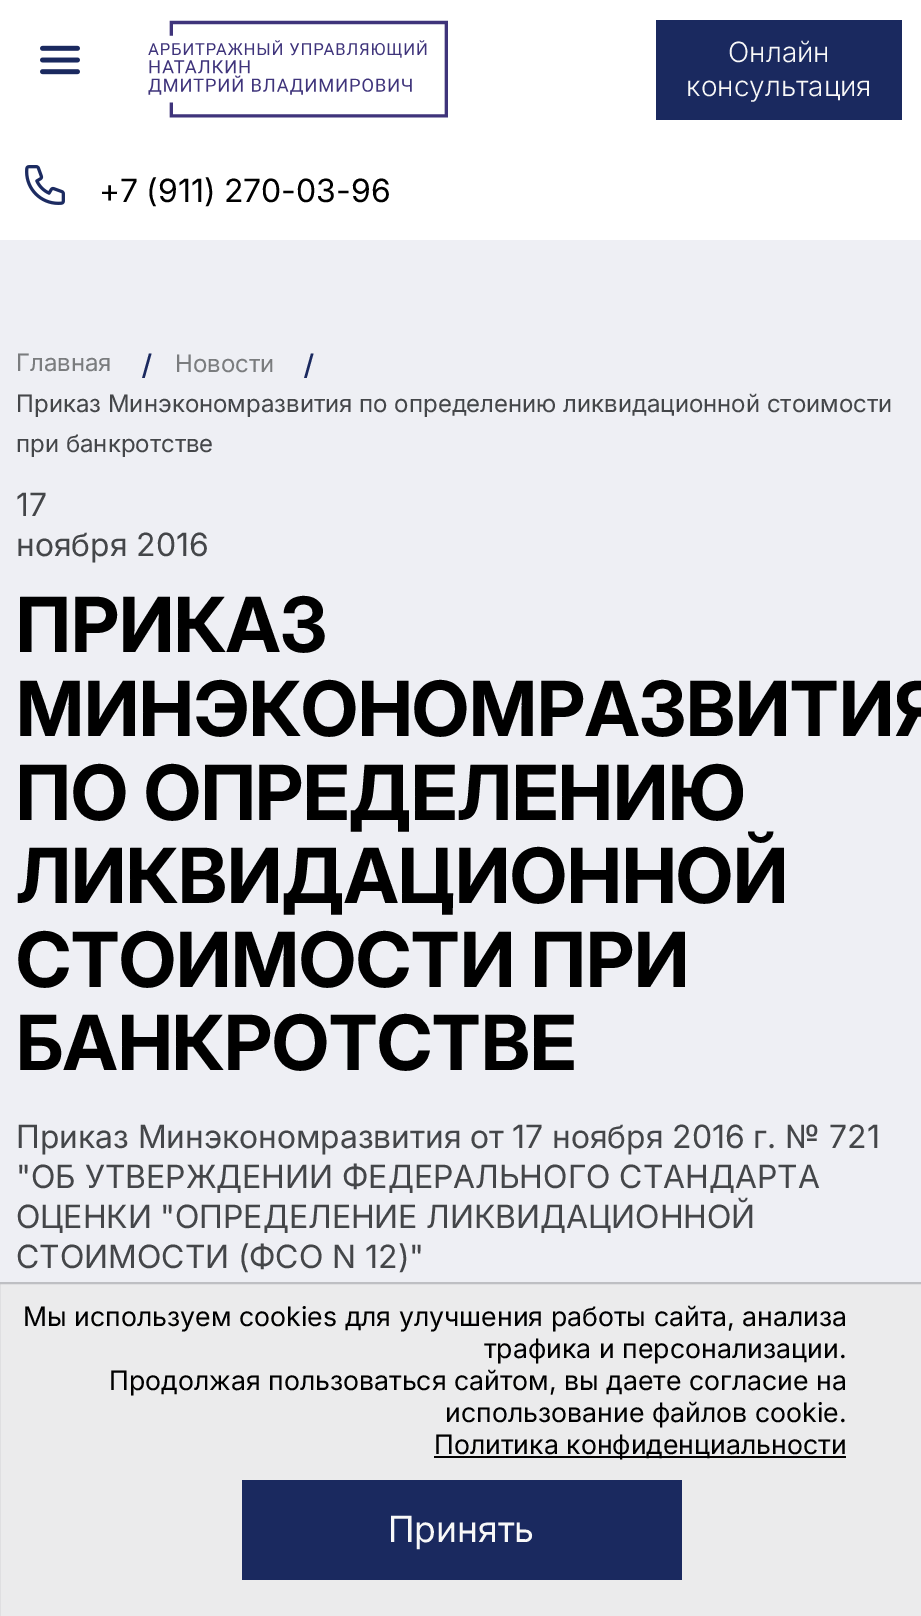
%!PS-Adobe-3.0
%%BoundingBox: 0 0 921 1616
%%LanguageLevel: 3
%%Pages: 1
%%EndComments
%%BeginProlog
/drawimage { 5 dict begin { /h /w /y /x /name } { exch def } forall
  gsave x y translate w h scale
  w h 8 [w 0 0 h 0 0] name (r) file false 3 colorimage grestore end } def
%%EndProlog
%%BeginSetup
<< /PageSize [921 1616] >> setpagedevice
%%EndSetup
%%Page: 1 1
0 1616 translate 1 -1 scale
4 setmiterlimit
0.933 0.937 0.957 setrgbcolor
0 0 921 1616 rectfill
1 setgray
0 0 921 240 rectfill
(images/1.raw) 40 45 40 30 drawimage
(images/2.raw) 148 20 300 98 drawimage
0.102 0.161 0.373 setrgbcolor
656 20 246 100 rectfill
(images/3.raw) 25 165 40 40 drawimage
gsave
142 352 10 26 rectclip
newpath 142 378.5 moveto 149 353.5 lineto 151.5 353.5 lineto 144.5 378.5 lineto closepath fill
grestore
gsave
304 352 10 26 rectclip
newpath 304 378.5 moveto 311 353.5 lineto 313.5 353.5 lineto 306.5 378.5 lineto closepath fill
grestore
0.922 0.922 0.925 setrgbcolor
newpath -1 1283 moveto 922 1283 lineto 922 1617 lineto -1 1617 lineto closepath gsave fill grestore
0.745 0.749 0.765 setrgbcolor
2 setlinewidth
stroke
0 setgray
434 1456 412 2 rectfill
0.102 0.161 0.373 setrgbcolor
242 1480 440 100 rectfill
/Inter-Light [28 0 0 -28 0 0] selectfont
0.973 setgray
728 62 moveto (Онлайн) show
686 96 moveto (консультация) show
/Inter-Regular [32 0 0 -32 0 0] selectfont
0 setgray
99 202 moveto -1 0 32 (+7 \(911\) 270-03-96) widthshow
/Inter-Regular [24 0 0 -24 0 0] selectfont
0.478 0.486 0.494 setrgbcolor
16 371 moveto (Главная) show
175 372 moveto (Новости) show
0.267 0.275 0.286 setrgbcolor
16 412 moveto (Приказ Минэкономразвития по определению ликвидационной стоимости) show
16 452 moveto (при банкротстве) show
/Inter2-Regular [32 0 0 -32 0 0] selectfont
16 516 moveto (17) show
16 556 moveto (ноября) show
/Inter-Regular [32 0 0 -32 0 0] selectfont
136 556 moveto (2016) show
/Inter-Bold [76 0 0 -76 0 0] selectfont
0 setgray
16 652 moveto (ПРИКАЗ) show
16 736 moveto (МИНЭКОНОМРАЗВИТИЯ) show
16 820 moveto (ПО ОПРЕДЕЛЕНИЮ) show
16 903 moveto (ЛИКВИДАЦИОННОЙ) show
16 987 moveto (СТОИМОСТИ ПРИ) show
16 1070 moveto (БАНКРОТСТВЕ) show
/Inter2-Regular [32 0 0 -32 0 0] selectfont
0.267 0.275 0.286 setrgbcolor
16 1148 moveto (Приказ Минэкономразвития от) show
/Inter-Regular [32 0 0 -32 0 0] selectfont
512 1148 moveto (17) show
/Inter2-Regular [32 0 0 -32 0 0] selectfont
552 1148 moveto (ноября) show
/Inter-Regular [32 0 0 -32 0 0] selectfont
672 1148 moveto (2016) show
/Inter2-Regular [32 0 0 -32 0 0] selectfont
753 1148 moveto (г) show
/Inter-Regular [32 0 0 -32 0 0] selectfont
767 1148 moveto (.) show
/Inter2-Regular [32 0 0 -32 0 0] selectfont
785 1148 moveto (№) show
/Inter-Regular [32 0 0 -32 0 0] selectfont
829 1148 moveto (721) show
16 1188 moveto (") show
/Inter2-Regular [32 0 0 -32 0 0] selectfont
31 1188 moveto (ОБ УТВЕРЖДЕНИИ ФЕДЕРАЛЬНОГО СТАНДАРТА) show
16 1228 moveto (ОЦЕНКИ) show
/Inter-Regular [32 0 0 -32 0 0] selectfont
160 1228 moveto (") show
/Inter2-Regular [32 0 0 -32 0 0] selectfont
175 1228 moveto (ОПРЕДЕЛЕНИЕ ЛИКВИДАЦИОННОЙ) show
16 1268 moveto (СТОИМОСТИ) show
/Inter-Regular [32 0 0 -32 0 0] selectfont
238 1268 moveto (\() show
/Inter2-Regular [32 0 0 -32 0 0] selectfont
249 1268 moveto (ФСО) show
/Inter-Regular [32 0 0 -32 0 0] selectfont
332 1268 moveto (N 12\)") show
/Inter-Regular [26.7 0 0 -26.7 0 0] selectfont
0 setgray
23 1326 moveto (Мы используем cookies для улучшения работы сайта, анализа) show
484 1358 moveto (трафика и персонализации.) show
109 1390 moveto (Продолжая пользоваться сайтом, вы даете согласие на) show
445 1422 moveto (использование файлов cookie.) show
434 1454 moveto (Политика конфиденциальности) show
/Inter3-Regular [36 0 0 -36 0 0] selectfont
0.973 setgray
388 1542 moveto (Принять) show
showpage
%%EOF
